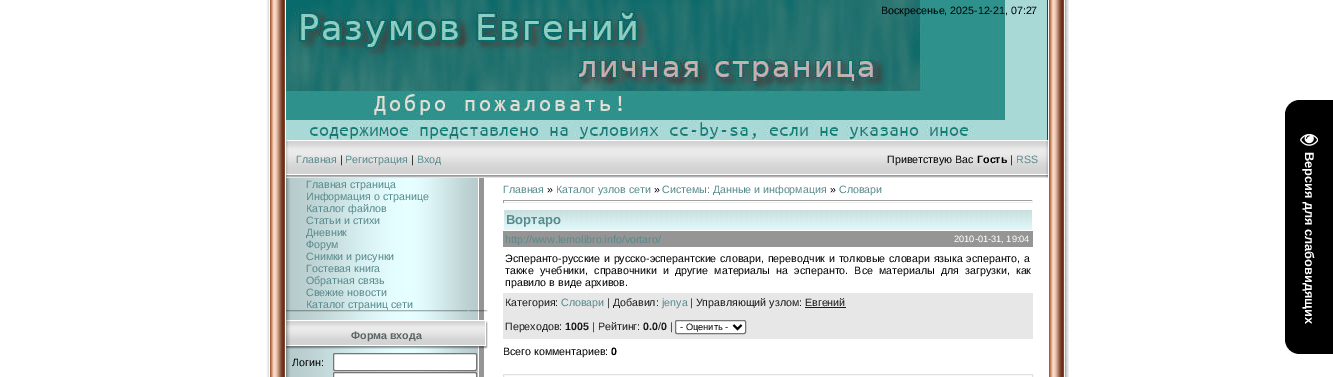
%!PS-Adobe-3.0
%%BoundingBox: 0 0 1333 377
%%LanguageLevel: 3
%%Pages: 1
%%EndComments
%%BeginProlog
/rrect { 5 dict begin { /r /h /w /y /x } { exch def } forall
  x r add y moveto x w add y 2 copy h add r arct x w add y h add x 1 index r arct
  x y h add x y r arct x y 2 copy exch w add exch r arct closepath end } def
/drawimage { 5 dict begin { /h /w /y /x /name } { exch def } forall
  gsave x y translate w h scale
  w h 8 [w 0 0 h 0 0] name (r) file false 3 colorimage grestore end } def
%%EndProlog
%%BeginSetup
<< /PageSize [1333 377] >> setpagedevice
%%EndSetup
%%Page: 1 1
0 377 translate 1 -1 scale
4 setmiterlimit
1 setgray
0 0 1333 377 rectfill
(images/1.raw) 266 0 19 377 drawimage
(images/2.raw) 286 0 762 140 drawimage
(images/3.raw) 286 140 762 38 drawimage
(images/4.raw) 286 178 202 199 drawimage
(images/6.raw) 286 320 202 29 drawimage
333.5 353.5 143 17 1.5 rrect gsave fill grestore
0.463 setgray
stroke
1 setgray
333.5 372.5 143 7 1.5 rrect gsave fill grestore
0.463 setgray
stroke
0.624 setgray
503 200 530 1 rectfill
0.933 setgray
1032 200 1 3 rectfill
503 202 530 1 rectfill
0.624 setgray
503 200 1 3 rectfill
(images/7.raw) 504 210 528 20 drawimage
0.584 setgray
503 231 530 16 rectfill
0.906 setgray
503 293 530 46 rectfill
0.102 setgray
805 307 41 1 rectfill
1 setgray
675.5 320.5 70 13 1.5 rrect gsave fill grestore
0.463 setgray
stroke
0 setgray
2 setlinewidth
newpath 733.5 325 moveto 737.5 329 lineto 741.5 325 lineto stroke
0.882 setgray
1 setlinewidth
503.5 374.5 529 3 rectstroke
(images/8.raw) 1049 0 20 377 drawimage
0 setgray
newpath 1300 100 moveto 1333 100 lineto 1333 354 lineto 1300 354 lineto 1291.5 354 1285 347.5 1285 339 curveto 1285 115 lineto 1285 106.5 1291.5 100 1300 100 curveto closepath fill
(images/9.raw) 1300 133 18 13 drawimage
/LiberationSans-Regular [10.65 0 0 -10.65 0 0] selectfont
881 14 moveto (Воскресенье, 2025-12-21, 07:27) show
0.341 0.541 0.553 setrgbcolor
296 163 moveto (Главная) show
0 setgray
340 163 moveto (|) show
0.341 0.541 0.553 setrgbcolor
345 163 moveto (Регистрация) show
0 setgray
411 163 moveto (|) show
0.341 0.541 0.553 setrgbcolor
417 163 moveto (Вход) show
0 setgray
887 163 moveto (Приветствую Вас) show
/LiberationSans-Bold [10.65 0 0 -10.65 0 0] selectfont
977 163 moveto (Гость) show
/LiberationSans-Regular [10.65 0 0 -10.65 0 0] selectfont
1010 163 moveto (|) show
0.341 0.541 0.553 setrgbcolor
1016 163 moveto (RSS) show
306 188 moveto (Главная страница) show
306 200 moveto (Информация о странице) show
306 212 moveto (Каталог файлов) show
306 224 moveto (Статьи и стихи) show
306 236 moveto (Дневник) show
306 248 moveto (Форум) show
306 260 moveto (Снимки и рисунки) show
306 272 moveto (Гостевая книга) show
306 284 moveto (Обратная связь) show
306 296 moveto (Свежие новости) show
306 308 moveto (Каталог страниц сети) show
(images/5.raw) 286 310 202 2 drawimage
/LiberationSans-Bold [10.65 0 0 -10.65 0 0] selectfont
0.357 0.396 0.4 setrgbcolor
351 339 moveto (Форма входа) show
/LiberationSans-Regular [10.65 0 0 -10.65 0 0] selectfont
0 setgray
292 366 moveto (Логин:) show
0.341 0.541 0.553 setrgbcolor
503 193 moveto (Главная) show
0 setgray
547 193 moveto (») show
0.341 0.541 0.553 setrgbcolor
556 193 moveto (Каталог узлов сети) show
0 setgray
654 193 moveto (») show
0.341 0.541 0.553 setrgbcolor
662 193 moveto (Системы: Данные и информация) show
0 setgray
830 193 moveto (») show
0.341 0.541 0.553 setrgbcolor
839 193 moveto (Словари) show
/LiberationSans-Bold [13 0 0 -13 0 0] selectfont
506 224 moveto (Вортаро) show
/LiberationSans-Regular [10.65 0 0 -10.65 0 0] selectfont
505 243 moveto (http://www.lernolibro.info/vortaro/) show
/LiberationSans-Regular [9.25 0 0 -9.25 0 0] selectfont
1 setgray
954 242 moveto (2010-01-31, 19:04) show
/LiberationSans-Regular [10.65 0 0 -10.65 0 0] selectfont
0 setgray
505 262 moveto 0.75 0 32 (Эсперанто-русские и русско-эсперантские словари, переводчик и толковые словари языка эсперанто, а) widthshow
505 274 moveto 3.25 0 32 (также учебники, справочники и другие материалы на эсперанто. Все материалы для загрузки, как) widthshow
505 286 moveto (правило в виде архивов.) show
0.102 setgray
505 306 moveto (Категория:) show
0.341 0.541 0.553 setrgbcolor
561 306 moveto (Словари) show
0.102 setgray
607 306 moveto (| Добавил:) show
0.341 0.541 0.553 setrgbcolor
662 306 moveto (jenya) show
0.102 setgray
690 306 moveto (| Управляющий узлом: Евгений) show
505 330 moveto (Переходов:) show
/LiberationSans-Bold [10.65 0 0 -10.65 0 0] selectfont
565 330 moveto (1005) show
/LiberationSans-Regular [10.65 0 0 -10.65 0 0] selectfont
592 330 moveto (| Рейтинг:) show
/LiberationSans-Bold [10.65 0 0 -10.65 0 0] selectfont
643 330 moveto (0.0 0) show
/LiberationSans-Regular [10.65 0 0 -10.65 0 0] selectfont
658 330 moveto (/) show
670 330 moveto (|) show
/LiberationSans-Regular [9.25 0 0 -9.25 0 0] selectfont
0 setgray
680 330 moveto (- Оценить -) show
/LiberationSans-Regular [10.65 0 0 -10.65 0 0] selectfont
503 355 moveto (Всего комментариев:) show
/LiberationSans-Bold [10.65 0 0 -10.65 0 0] selectfont
611 355 moveto (0) show
/LiberationSans-Bold [12.75 0 0 -12.75 0 0] selectfont
1 setgray
gsave 1305 152 translate 90 rotate 0 0 moveto (Версия для слабовидящих) show grestore
showpage
%%EOF
